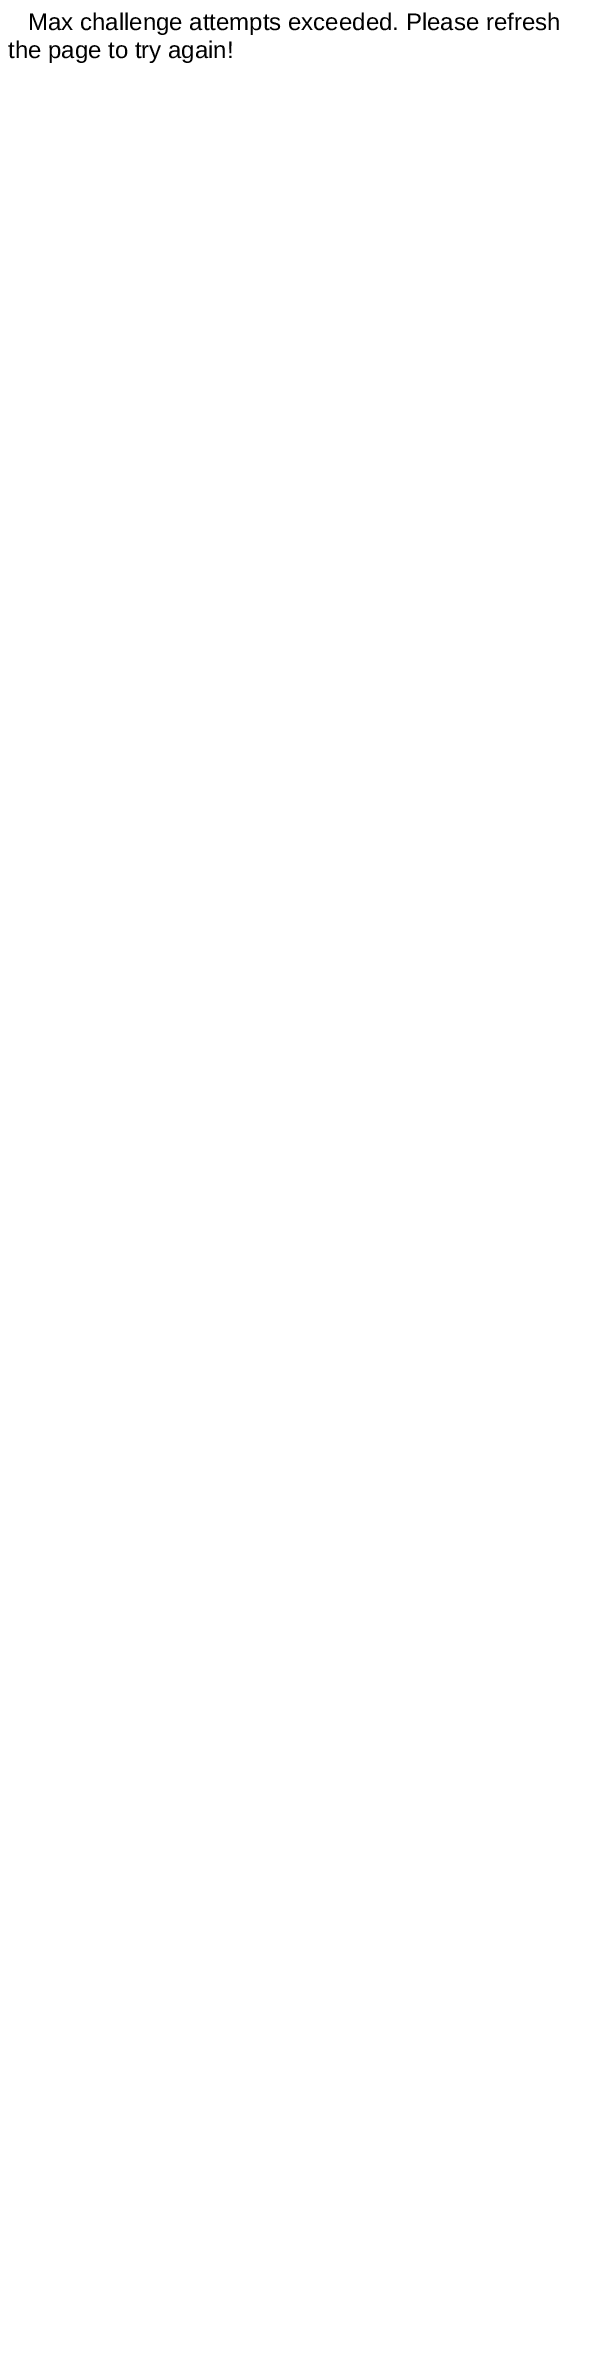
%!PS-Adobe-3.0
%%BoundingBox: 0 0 600 2363
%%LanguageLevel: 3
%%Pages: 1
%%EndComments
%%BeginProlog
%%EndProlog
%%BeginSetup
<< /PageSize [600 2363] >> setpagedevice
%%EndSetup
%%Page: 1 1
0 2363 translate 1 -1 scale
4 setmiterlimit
1 setgray
0 0 600 2363 rectfill
/LiberationSans-Regular [24 0 0 -24 0 0] selectfont
0 setgray
28 30 moveto (Max challenge attempts exceeded. Please refresh) show
8 58 moveto (the page to try again!) show
showpage
%%EOF
